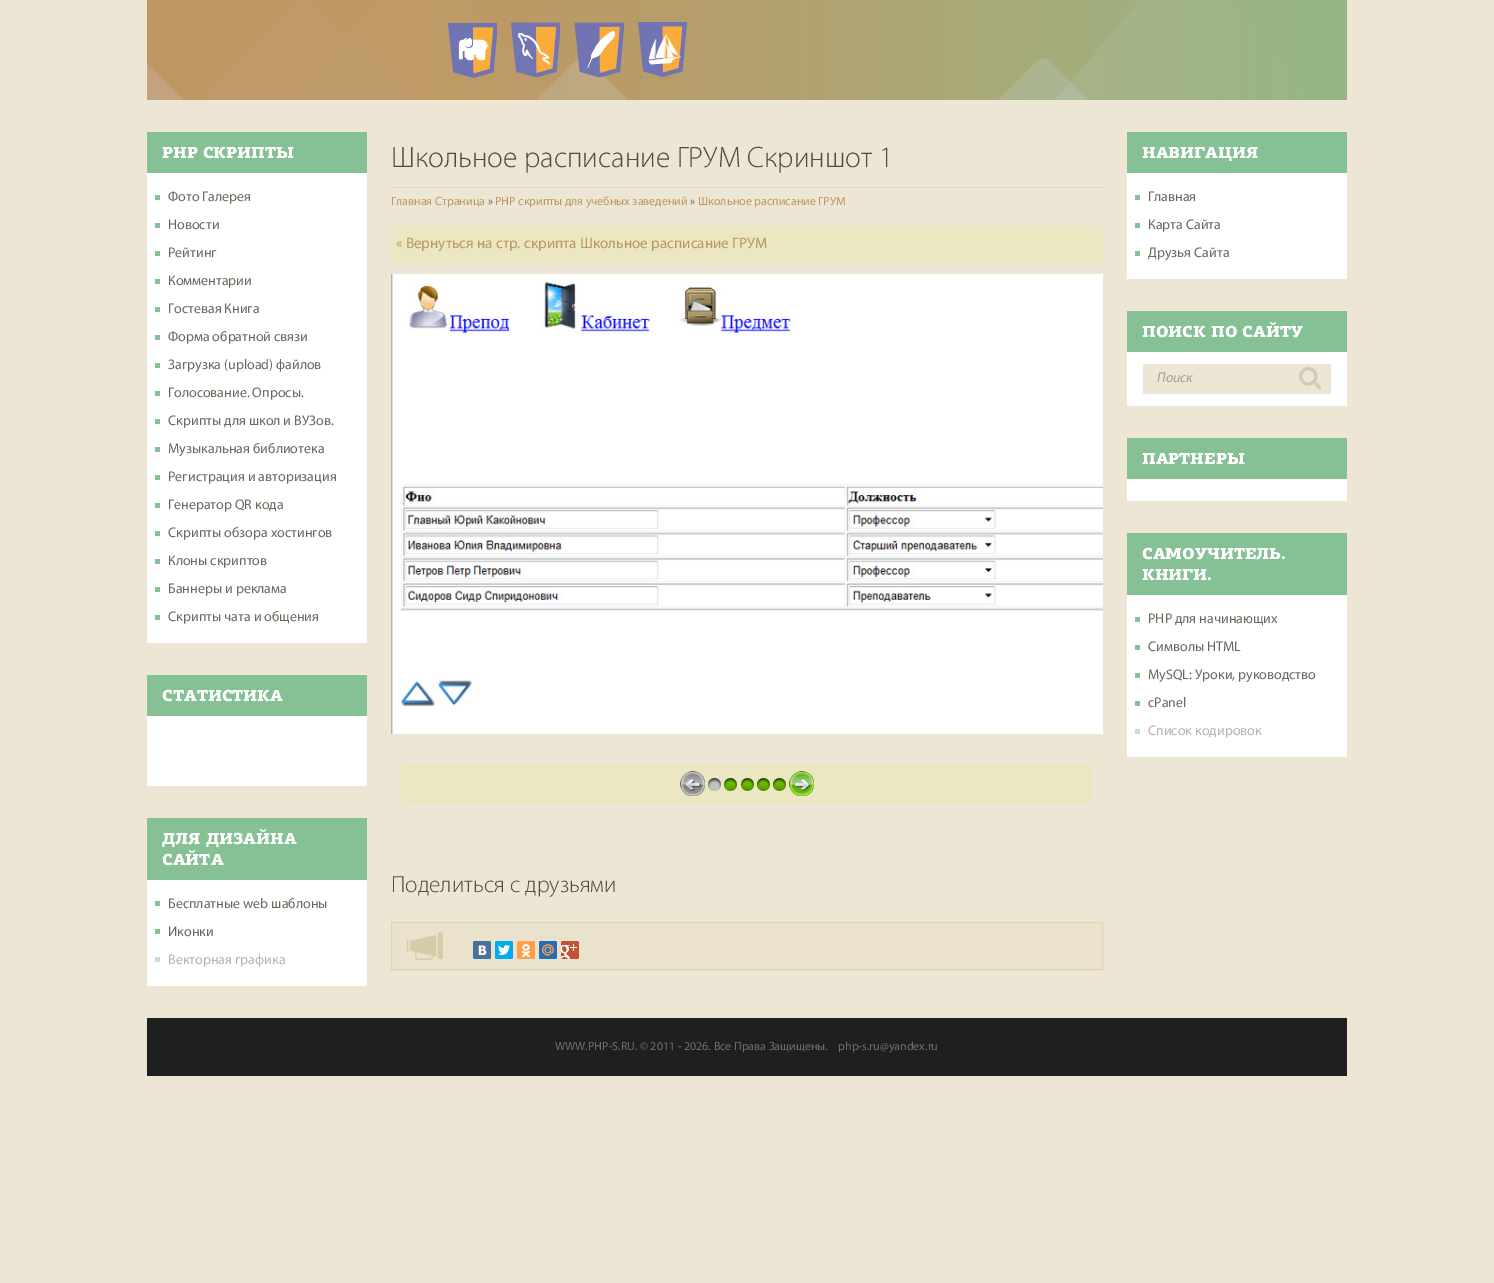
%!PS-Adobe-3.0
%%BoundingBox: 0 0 1494 1283
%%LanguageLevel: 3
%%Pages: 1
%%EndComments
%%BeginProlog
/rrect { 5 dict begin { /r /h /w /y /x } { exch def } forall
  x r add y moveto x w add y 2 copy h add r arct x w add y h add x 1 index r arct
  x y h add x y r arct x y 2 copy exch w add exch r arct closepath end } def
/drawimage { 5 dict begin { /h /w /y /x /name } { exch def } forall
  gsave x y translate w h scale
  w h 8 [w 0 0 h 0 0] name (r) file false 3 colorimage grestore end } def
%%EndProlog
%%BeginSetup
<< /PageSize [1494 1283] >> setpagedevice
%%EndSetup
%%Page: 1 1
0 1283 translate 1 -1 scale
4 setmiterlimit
0.929 0.902 0.831 setrgbcolor
0 0 1494 1283 rectfill
(images/1.raw) 147 0 1200 100 drawimage
(images/2.raw) 447 22 50 56 drawimage
(images/3.raw) 511 22 49 56 drawimage
(images/4.raw) 574 22 50 56 drawimage
(images/5.raw) 638 22 50 56 drawimage
0.525 0.757 0.584 setrgbcolor
147 132 220 41 rectfill
1 setgray
147 173 220 470 rectfill
0.525 0.757 0.584 setrgbcolor
155 195 5 5 rectfill
155 223 5 5 rectfill
155 251 5 5 rectfill
155 279 5 5 rectfill
155 307 5 5 rectfill
155 335 5 5 rectfill
155 363 5 5 rectfill
155 391 5 5 rectfill
155 419 5 5 rectfill
155 447 5 5 rectfill
155 475 5 5 rectfill
155 503 5 5 rectfill
155 531 5 5 rectfill
155 559 5 5 rectfill
155 587 5 5 rectfill
155 615 5 5 rectfill
147 675 220 41 rectfill
1 setgray
147 716 220 70 rectfill
0.525 0.757 0.584 setrgbcolor
147 818 220 62 rectfill
1 setgray
147 880 220 106 rectfill
0.525 0.757 0.584 setrgbcolor
155 901 5 5 rectfill
155 929 5 5 rectfill
0.765 0.878 0.792 setrgbcolor
155 957 5 5 rectfill
0.89 0.835 0.733 setrgbcolor
391 187 712 1 rectfill
0.918 0.906 0.761 setrgbcolor
391 226 712 38 rectfill
(images/6.raw) 391 274 712 460 drawimage
401 764 692 39 rectfill
(images/7.raw) 680 771 25 25 drawimage
(images/8.raw) 708 778 13 13 drawimage
(images/9.raw) 724 778 13 13 drawimage
(images/9.raw) 741 778 13 13 drawimage
(images/9.raw) 757 778 13 13 drawimage
(images/9.raw) 773 778 13 13 drawimage
(images/10.raw) 789 771 25 25 drawimage
0.918 0.886 0.804 setrgbcolor
newpath 391.5 922.5 moveto 1102.5 922.5 lineto 1102.5 969.5 lineto 391.5 969.5 lineto closepath gsave fill grestore
0.875 0.827 0.702 setrgbcolor
stroke
(images/11.raw) 407 932 36 28 drawimage
0.282 0.447 0.62 setrgbcolor
473 941 18 18 2 rrect fill
(images/12.raw) 478 945 9 10 drawimage
0 0.675 0.929 setrgbcolor
495 941 18 18 2 rrect fill
(images/13.raw) 498 945 12 10 drawimage
1 0.624 0.302 setrgbcolor
517 941 18 18 2 rrect fill
(images/14.raw) 522 944 8 13 drawimage
0.133 0.431 0.718 setrgbcolor
539 941 18 18 2 rrect fill
(images/15.raw) 542 944 12 12 drawimage
0.761 0.322 0.204 setrgbcolor
561 941 18 18 2 rrect fill
(images/16.raw) 561 944 16 15 drawimage
0.525 0.757 0.584 setrgbcolor
1127 132 220 41 rectfill
1 setgray
1127 173 220 106 rectfill
0.525 0.757 0.584 setrgbcolor
1135 195 5 5 rectfill
1135 223 5 5 rectfill
1135 251 5 5 rectfill
1127 311 220 41 rectfill
1 setgray
1127 352 220 54 rectfill
0.929 0.902 0.831 setrgbcolor
1143 364 188 30 rectfill
(images/17.raw) 1299 367 22 22 drawimage
0.525 0.757 0.584 setrgbcolor
1127 438 220 41 rectfill
1 setgray
1127 479 220 22 rectfill
0.525 0.757 0.584 setrgbcolor
1127 533 220 62 rectfill
1 setgray
1127 595 220 162 rectfill
0.525 0.757 0.584 setrgbcolor
1135 617 5 5 rectfill
1135 645 5 5 rectfill
1135 673 5 5 rectfill
1135 701 5 5 rectfill
0.765 0.878 0.792 setrgbcolor
1135 729 5 5 rectfill
0.122 setgray
147 1018 1200 58 rectfill
/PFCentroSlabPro-Black [16 0 0 -16 0 0] selectfont
1 setgray
162 158 moveto (PHP СКРИПТЫ) show
/Myriad-Regular [14 0 0 -14 0 0] selectfont
0.42 0.404 0.361 setrgbcolor
168 201 moveto (Фото Галерея) show
168 229 moveto (Новости) show
168 257 moveto (Рейтинг) show
168 285 moveto (Комментарии) show
168 313 moveto (Гостевая Книга) show
168 341 moveto (Форма обратной связи) show
168 369 moveto (Загрузка \(upload\) файлов) show
168 397 moveto (Голосование. Опросы.) show
168 425 moveto (Скрипты для школ и ВУЗов.) show
168 453 moveto (Музыкальная библиотека) show
168 481 moveto (Регистрация и авторизация) show
168 509 moveto (Генератор QR кода) show
168 537 moveto (Скрипты обзора хостингов) show
168 565 moveto (Клоны скриптов) show
168 593 moveto (Баннеры и реклама) show
168 621 moveto (Скрипты чата и общения) show
/PFCentroSlabPro-Black [16 0 0 -16 0 0] selectfont
1 setgray
162 701 moveto (СТАТИСТИКА) show
162 844 moveto (ДЛЯ ДИЗАЙНА) show
162 865 moveto (САЙТА) show
/Myriad-Regular [14 0 0 -14 0 0] selectfont
0.42 0.404 0.361 setrgbcolor
168 908 moveto (Бесплатные web шаблоны) show
168 936 moveto (Иконки) show
0.71 0.702 0.682 setrgbcolor
168 964 moveto (Векторная графика) show
/Myriad-Light [29.6 0 0 -29.6 0 0] selectfont
0.314 0.298 0.255 setrgbcolor
391 167 moveto (Школьное расписание ГРУМ Скриншот 1) show
/Myriad-Regular [12 0 0 -12 0 0] selectfont
0.741 0.588 0.388 setrgbcolor
391 205 moveto (Главная Страница) show
0.42 0.404 0.361 setrgbcolor
488 205 moveto (») show
0.741 0.588 0.388 setrgbcolor
495 205 moveto (PHP скрипты для учебных заведений) show
0.42 0.404 0.361 setrgbcolor
690 205 moveto (») show
0.741 0.588 0.388 setrgbcolor
698 205 moveto (Школьное расписание ГРУМ) show
/Myriad-Regular [15.2 0 0 -15.2 0 0] selectfont
396 248 moveto (« Вернуться на стр. скрипта Школьное расписание ГРУМ) show
/Myriad-Light [23.25 0 0 -23.25 0 0] selectfont
0.314 0.298 0.255 setrgbcolor
391 892 moveto (Поделиться с друзьями) show
/PFCentroSlabPro-Black [16 0 0 -16 0 0] selectfont
1 setgray
1142 158 moveto (НАВИГАЦИЯ) show
/Myriad-Regular [14 0 0 -14 0 0] selectfont
0.42 0.404 0.361 setrgbcolor
1148 201 moveto (Главная) show
1148 229 moveto (Карта Сайта) show
1148 257 moveto (Друзья Сайта) show
/PFCentroSlabPro-Black [16 0 0 -16 0 0] selectfont
1 setgray
1142 337 moveto (ПОИСК ПО САЙТУ) show
/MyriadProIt-Italic [14 0 0 -14 0 0] selectfont
0.663 0.627 0.533 setrgbcolor
1157 382 moveto (Поиск) show
/PFCentroSlabPro-Black [16 0 0 -16 0 0] selectfont
1 setgray
1142 464 moveto (ПАРТНЕРЫ) show
1142 559 moveto (САМОУЧИТЕЛЬ.) show
1142 580 moveto (КНИГИ.) show
/Myriad-Regular [14 0 0 -14 0 0] selectfont
0.42 0.404 0.361 setrgbcolor
1148 623 moveto (PHP для начинающих) show
1148 651 moveto (Cимволы HTML) show
1148 679 moveto (MySQL: Уроки, руководство) show
1148 707 moveto (cPanel) show
0.71 0.702 0.682 setrgbcolor
1148 735 moveto (Список кодировок) show
/Myriad-Regular [12 0 0 -12 0 0] selectfont
0.431 setgray
555 1050 moveto (WWW.PHP-S.RU. © 2011 - 2026. Все Права Защищены.    php-s.ru@yandex.ru) show
showpage
%%EOF
